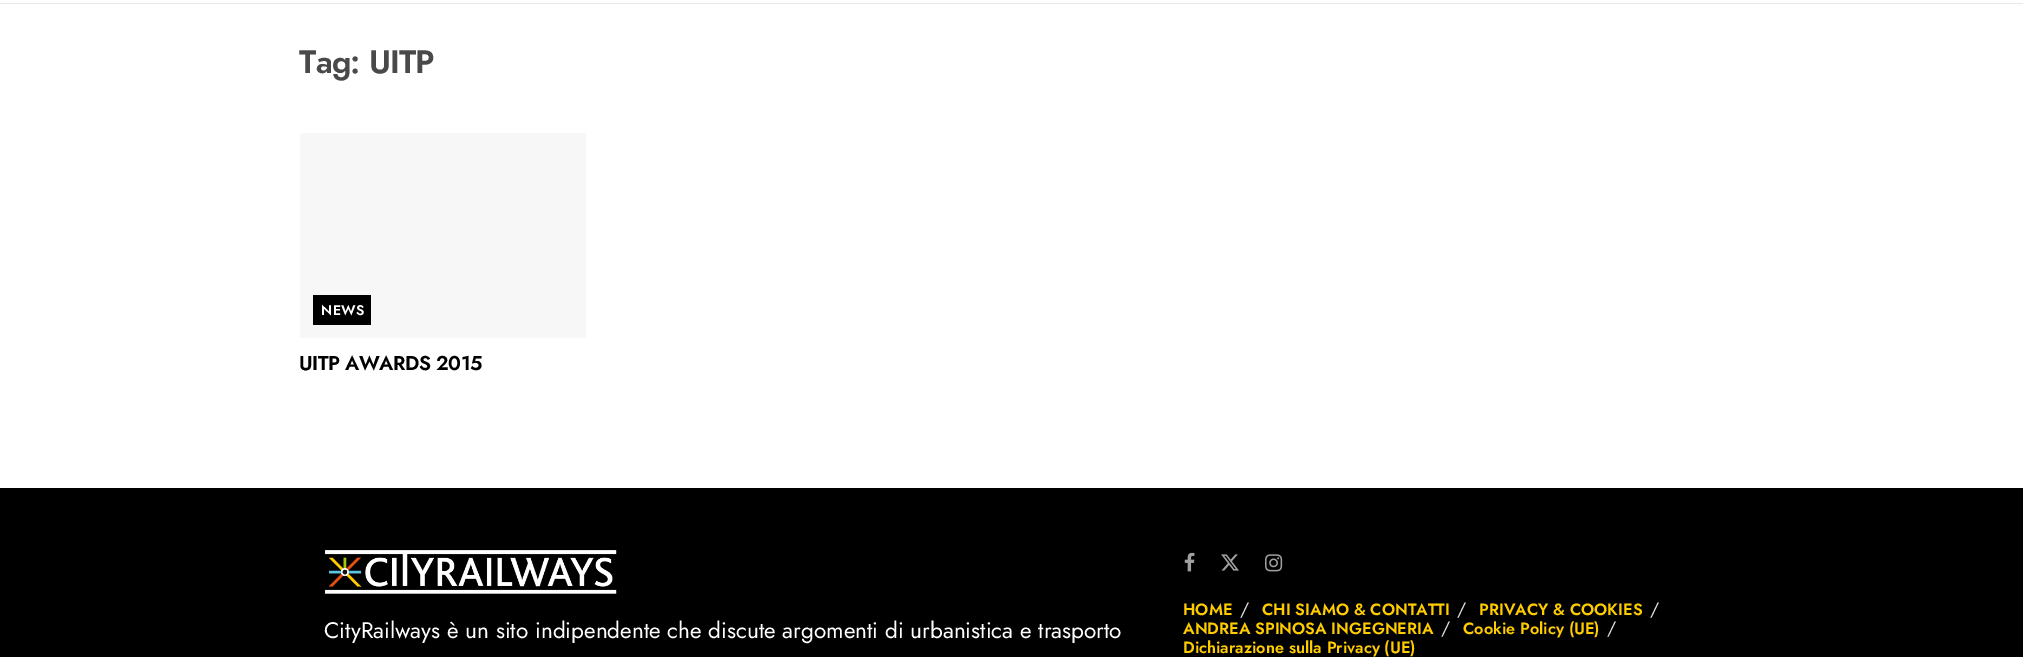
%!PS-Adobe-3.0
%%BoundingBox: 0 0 2023 657
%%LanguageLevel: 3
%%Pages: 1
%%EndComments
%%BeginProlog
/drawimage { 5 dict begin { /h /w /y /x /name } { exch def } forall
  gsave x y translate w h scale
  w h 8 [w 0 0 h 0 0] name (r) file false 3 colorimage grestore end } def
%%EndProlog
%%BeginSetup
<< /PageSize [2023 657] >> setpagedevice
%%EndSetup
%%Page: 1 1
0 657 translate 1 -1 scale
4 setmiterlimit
1 setgray
0 0 2023 657 rectfill
0.91 setgray
0 3 2023 1 rectfill
0.969 setgray
300 133 286 205 rectfill
0 setgray
313 295 58 30 rectfill
0 488 2023 169 rectfill
(images/1.raw) 325 550 292 44 drawimage
(images/2.raw) 1184 552 11 20 drawimage
(images/3.raw) 1221 554 18 17 drawimage
(images/4.raw) 1265 554 18 18 drawimage
/Jost-SemiBold [32.5 0 0 -32.5 0 0] selectfont
0.286 setgray
299 73 moveto -0.75 0 (Tag: UITP) ashow
/Jost-SemiBold [14 0 0 -14 0 0] selectfont
1 setgray
321 315 moveto 0.5 0 (NEWS) ashow
/Jost-SemiBold [20 0 0 -20 0 0] selectfont
0 setgray
299 370 moveto -0.4 0 (UITP AWARDS 2015) ashow
/Jost-Regular [22.5 0 0 -22.5 0 0] selectfont
1 setgray
324 638 moveto (CityRailways è un sito indipendente che discute argomenti di urbanistica e trasporto) show
/Jost-SemiBold [16.25 0 0 -16.25 0 0] selectfont
1 0.8 0 setrgbcolor
1183 615 moveto (HOME) show
/Jost-Regular [18 0 0 -18 0 0] selectfont
0.878 setgray
1240 615 moveto (/) show
/Jost-SemiBold [16.25 0 0 -16.25 0 0] selectfont
1 0.8 0 setrgbcolor
1262 615 moveto (CHI SIAMO & CONTATTI) show
/Jost-Regular [18 0 0 -18 0 0] selectfont
0.878 setgray
1457 615 moveto (/) show
/Jost-SemiBold [16.25 0 0 -16.25 0 0] selectfont
1 0.8 0 setrgbcolor
1479 615 moveto (PRIVACY & COOKIES) show
/Jost-Regular [18 0 0 -18 0 0] selectfont
0.878 setgray
1650 615 moveto (/) show
/Jost-SemiBold [16.25 0 0 -16.25 0 0] selectfont
1 0.8 0 setrgbcolor
1183 634 moveto (ANDREA SPINOSA INGEGNERIA) show
/Jost-Regular [18 0 0 -18 0 0] selectfont
0.878 setgray
1441 634 moveto (/) show
/Jost-SemiBold [16.25 0 0 -16.25 0 0] selectfont
1 0.8 0 setrgbcolor
1463 634 moveto (Cookie Policy \(UE\)) show
/Jost-Regular [18 0 0 -18 0 0] selectfont
0.878 setgray
1607 634 moveto (/) show
/Jost-SemiBold [16.25 0 0 -16.25 0 0] selectfont
1 0.8 0 setrgbcolor
1183 653 moveto (Dichiarazione sulla Privacy \(UE\)) show
showpage
%%EOF
